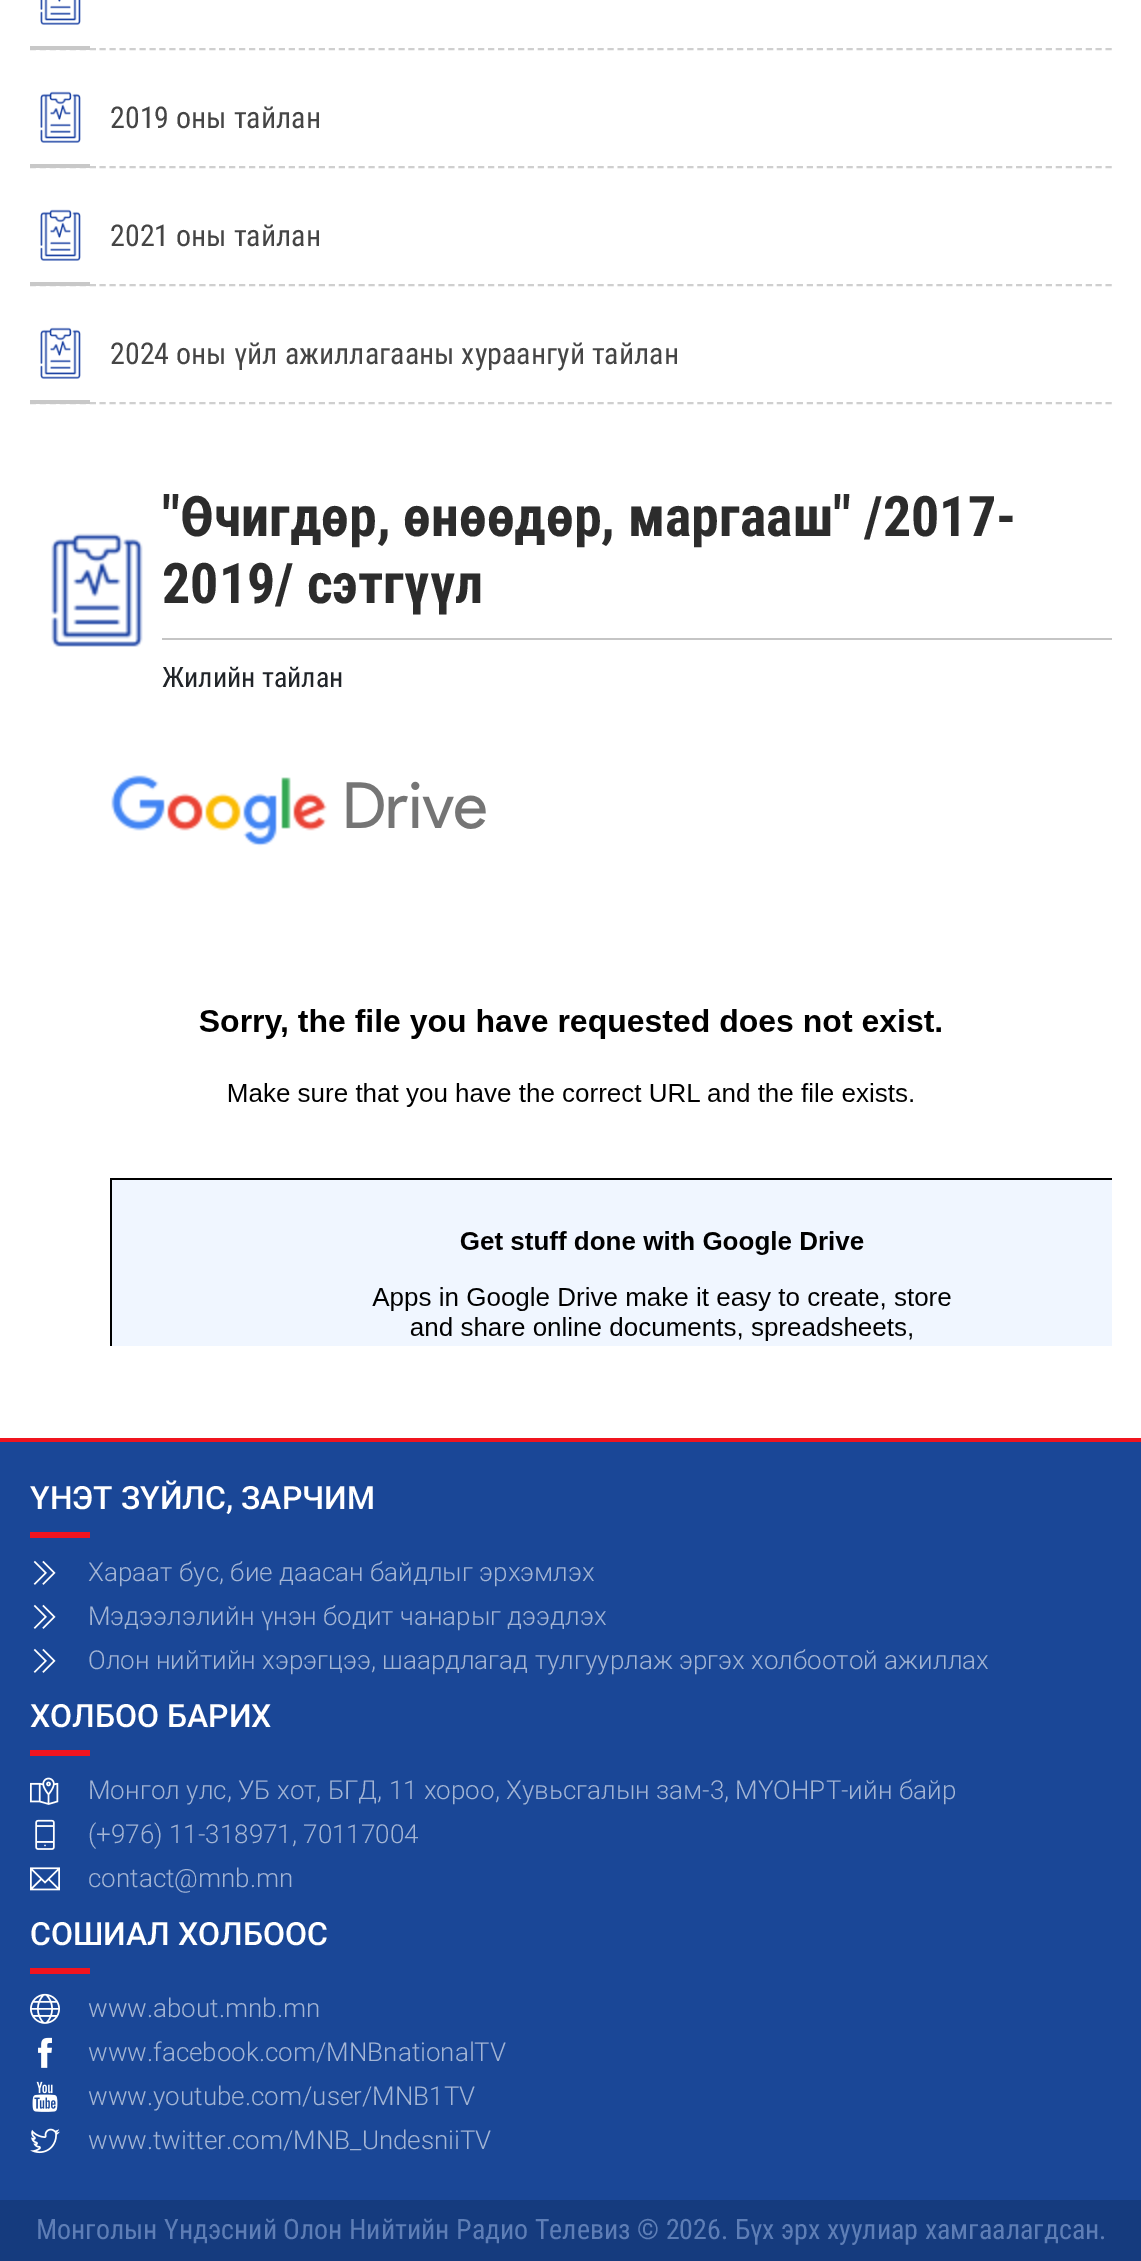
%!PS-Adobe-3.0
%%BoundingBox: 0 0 1141 2261
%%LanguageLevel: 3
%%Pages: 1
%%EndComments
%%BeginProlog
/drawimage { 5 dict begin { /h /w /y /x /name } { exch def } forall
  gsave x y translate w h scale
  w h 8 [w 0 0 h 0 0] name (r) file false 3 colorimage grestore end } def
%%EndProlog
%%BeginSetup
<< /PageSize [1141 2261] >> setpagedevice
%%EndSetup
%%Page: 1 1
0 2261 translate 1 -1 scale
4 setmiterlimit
1 setgray
0 0 1141 2261 rectfill
0.812 setgray
2 setlinewidth
[6 3.96] 0 setdash
newpath 30 49 moveto 1112 49 lineto stroke
(images/1.raw) 40 0 41 25 drawimage
0.784 setgray
30 46 60 4 rectfill
0.812 setgray
newpath 30 167 moveto 1112 167 lineto stroke
(images/2.raw) 40 91 41 52 drawimage
0.784 setgray
30 164 60 4 rectfill
0.812 setgray
newpath 30 285 moveto 1112 285 lineto stroke
(images/2.raw) 40 209 41 52 drawimage
0.784 setgray
30 282 60 4 rectfill
0.812 setgray
newpath 30 403 moveto 1112 403 lineto stroke
(images/2.raw) 40 327 41 52 drawimage
0.784 setgray
30 400 60 4 rectfill
(images/3.raw) 51 533 92 114 drawimage
0.773 setgray
162 638 950 2 rectfill
(images/4.raw) 110 775 1002 571 drawimage
0.102 0.278 0.592 setrgbcolor
0 1442 1141 758 rectfill
0.941 0.078 0.118 setrgbcolor
0 1438 1141 4 rectfill
30 1532 60 6 rectfill
(images/5.raw) 33 1560 23 25 drawimage
(images/5.raw) 33 1604 23 25 drawimage
(images/5.raw) 33 1648 23 25 drawimage
30 1750 60 6 rectfill
(images/6.raw) 30 1777 29 28 drawimage
(images/7.raw) 35 1819 20 31 drawimage
(images/8.raw) 30 1867 30 24 drawimage
30 1968 60 6 rectfill
(images/9.raw) 30 1993 30 31 drawimage
(images/10.raw) 38 2037 14 31 drawimage
(images/11.raw) 32 2081 26 31 drawimage
(images/12.raw) 30 2128 30 26 drawimage
0.082 0.231 0.494 setrgbcolor
0 2200 1141 61 rectfill
/RobotoCondensed-Regular [30 0 0 -30 0 0] selectfont
0.271 setgray
110 128 moveto (2019 оны тайлан) show
110 246 moveto (2021 оны тайлан) show
110 364 moveto (2024 оны үйл ажиллагааны хураангуй тайлан) show
/RobotoCondensed-Bold [56 0 0 -56 0 0] selectfont
0.173 setgray
162 536 moveto ("Өчигдөр, өнөөдөр, маргааш" /2017-) show
162 603 moveto (2019/ сэтгүүл) show
/RobotoCondensed-Regular [28 0 0 -28 0 0] selectfont
0.129 0.145 0.161 setrgbcolor
162 687 moveto (Жилийн тайлан) show
/Roboto-Medium [32 0 0 -32 0 0] selectfont
1 setgray
30 1509 moveto (ҮНЭТ ЗҮЙЛС, ЗАРЧИМ) show
/Roboto-Light [26 0 0 -26 0 0] selectfont
0.639 0.71 0.835 setrgbcolor
88 1581 moveto (Хараат бус, бие даасан байдлыг эрхэмлэх) show
88 1625 moveto (Мэдээлэлийн үнэн бодит чанарыг дээдлэх) show
88 1669 moveto (Олон нийтийн хэрэгцээ, шаардлагад тулгуурлаж эргэх холбоотой ажиллах) show
/Roboto-Medium [32 0 0 -32 0 0] selectfont
1 setgray
30 1727 moveto (ХОЛБОО БАРИХ) show
/Roboto-Light [26 0 0 -26 0 0] selectfont
0.639 0.71 0.835 setrgbcolor
88 1799 moveto (Монгол улс, УБ хот, БГД, 11 хороо, Хувьсгалын зам-3, МҮОНРТ-ийн байр) show
88 1843 moveto (\(+976\) 11-318971, 70117004) show
88 1887 moveto (contact@mnb.mn) show
/Roboto-Medium [32 0 0 -32 0 0] selectfont
1 setgray
30 1945 moveto (СОШИАЛ ХОЛБООС) show
/Roboto-Light [26 0 0 -26 0 0] selectfont
0.639 0.71 0.835 setrgbcolor
88 2017 moveto (www.about.mnb.mn) show
88 2061 moveto (www.facebook.com/MNBnationalTV) show
88 2105 moveto (www.youtube.com/user/MNB1TV) show
88 2149 moveto (www.twitter.com/MNB_UndesniiTV) show
/RobotoCondensed-Regular [28 0 0 -28 0 0] selectfont
0.369 0.494 0.714 setrgbcolor
36 2239 moveto (Монголын Үндэсний Олон Нийтийн Радио Телевиз © 2026. Бүх эрх хуулиар хамгаалагдсан.) show
showpage
%%EOF
